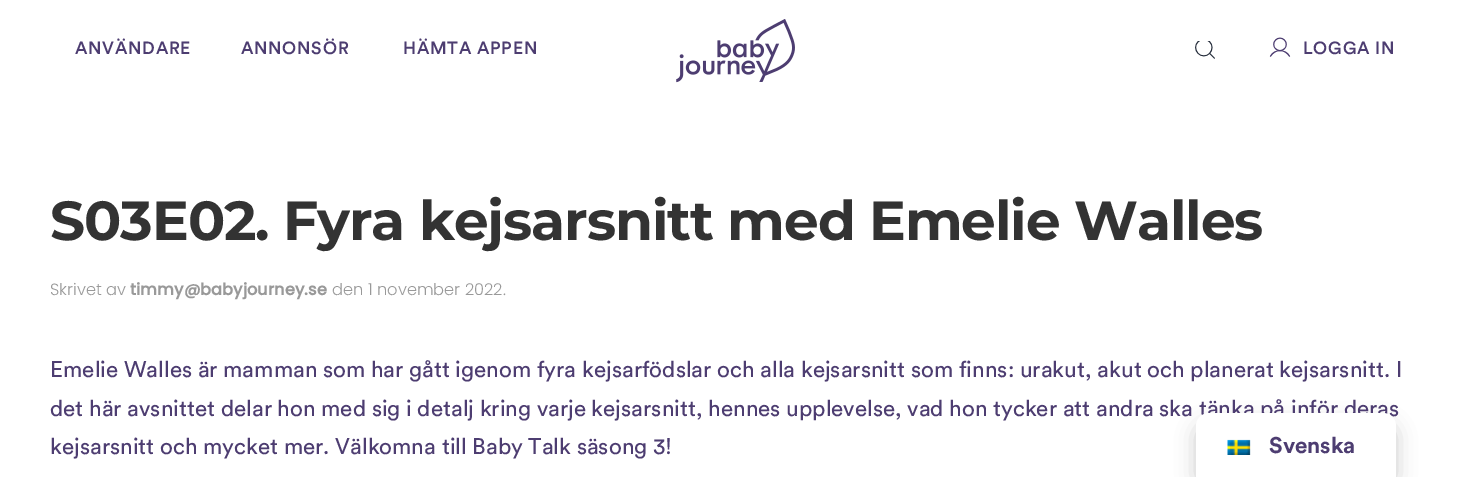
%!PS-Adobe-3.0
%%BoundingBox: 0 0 1469 477
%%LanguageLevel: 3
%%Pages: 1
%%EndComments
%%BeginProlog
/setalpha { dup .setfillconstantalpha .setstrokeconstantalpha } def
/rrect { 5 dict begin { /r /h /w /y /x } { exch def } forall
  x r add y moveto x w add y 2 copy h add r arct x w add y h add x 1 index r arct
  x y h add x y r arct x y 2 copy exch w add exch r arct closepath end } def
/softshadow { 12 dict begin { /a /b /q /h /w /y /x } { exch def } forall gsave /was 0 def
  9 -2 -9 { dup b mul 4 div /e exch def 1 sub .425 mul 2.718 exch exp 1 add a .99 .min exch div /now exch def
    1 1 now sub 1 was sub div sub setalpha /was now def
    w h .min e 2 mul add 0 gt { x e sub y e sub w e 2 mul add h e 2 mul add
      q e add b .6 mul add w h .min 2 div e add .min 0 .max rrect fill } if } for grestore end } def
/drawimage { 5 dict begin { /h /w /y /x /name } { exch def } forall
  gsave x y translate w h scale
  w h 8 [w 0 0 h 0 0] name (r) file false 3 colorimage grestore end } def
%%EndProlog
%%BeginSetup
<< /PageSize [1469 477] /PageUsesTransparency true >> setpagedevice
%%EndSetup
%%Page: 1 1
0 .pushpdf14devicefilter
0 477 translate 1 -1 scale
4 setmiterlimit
1 setgray
0 0 1469 477 rectfill
(images/1.raw) 676 19 119 64 drawimage
(images/2.raw) 1195 41 20 18 drawimage
(images/3.raw) 1269 37 22 20 drawimage
0 setgray
1196 423 200 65 13 10 0.2 softshadow
/Circular-Medium [17.5 0 0 -17.5 0 0] selectfont
0.302 0.239 0.443 setrgbcolor
75 54 moveto 0.75 0 (ANVÄNDARE) ashow
241 54 moveto 0.75 0 (ANNONSÖR) ashow
403 54 moveto 0.75 0 (HÄMTA APPEN) ashow
1303 54 moveto 0.75 0 (LOGGA IN) ashow
/Montserrat-Bold [55 0 0 -55 0 0] selectfont
0.2 setgray
50 240 moveto -1.1 0 (S03E02. Fyra kejsarsnitt med Emelie Walles) ashow
/Poppins-Light [16.25 0 0 -16.25 0 0] selectfont
0.6 setgray
50 295 moveto (Skrivet av) show
/Poppins-Bold [16.25 0 0 -16.25 0 0] selectfont
130 295 moveto (timmy@babyjourney.se) show
/Poppins-Light [16.25 0 0 -16.25 0 0] selectfont
332 295 moveto (den 1 november 2022.) show
/Circular-Regular [22.5 0 0 -22.5 0 0] selectfont
0.302 0.239 0.443 setrgbcolor
50 377 moveto (Emelie Walles är mamman som har gått igenom fyra kejsarfödslar och alla kejsarsnitt som finns: urakut, akut och planerat kejsarsnitt. I) show
50 416 moveto (det här avsnittet delar hon med sig i detalj kring varje kejsarsnitt, hennes upplevelse, vad hon tycker att andra ska tänka på inför deras) show
50 454 moveto (kejsarsnitt och mycket mer. Välkomna till Baby Talk säsong 3!) show
1 setgray
newpath 1209 413 moveto 1383 413 lineto 1390 413 1396 419 1396 426 curveto 1396 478 lineto 1196 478 lineto 1196 426 lineto 1196 419 1202 413 1209 413 curveto closepath fill
(images/4.raw) 1227 439 24 16 drawimage
/Circular-Bold [22.5 0 0 -22.5 0 0] selectfont
0.302 0.239 0.443 setrgbcolor
1269 453 moveto (Svenska) show
.poppdf14devicefilter showpage
%%EOF
